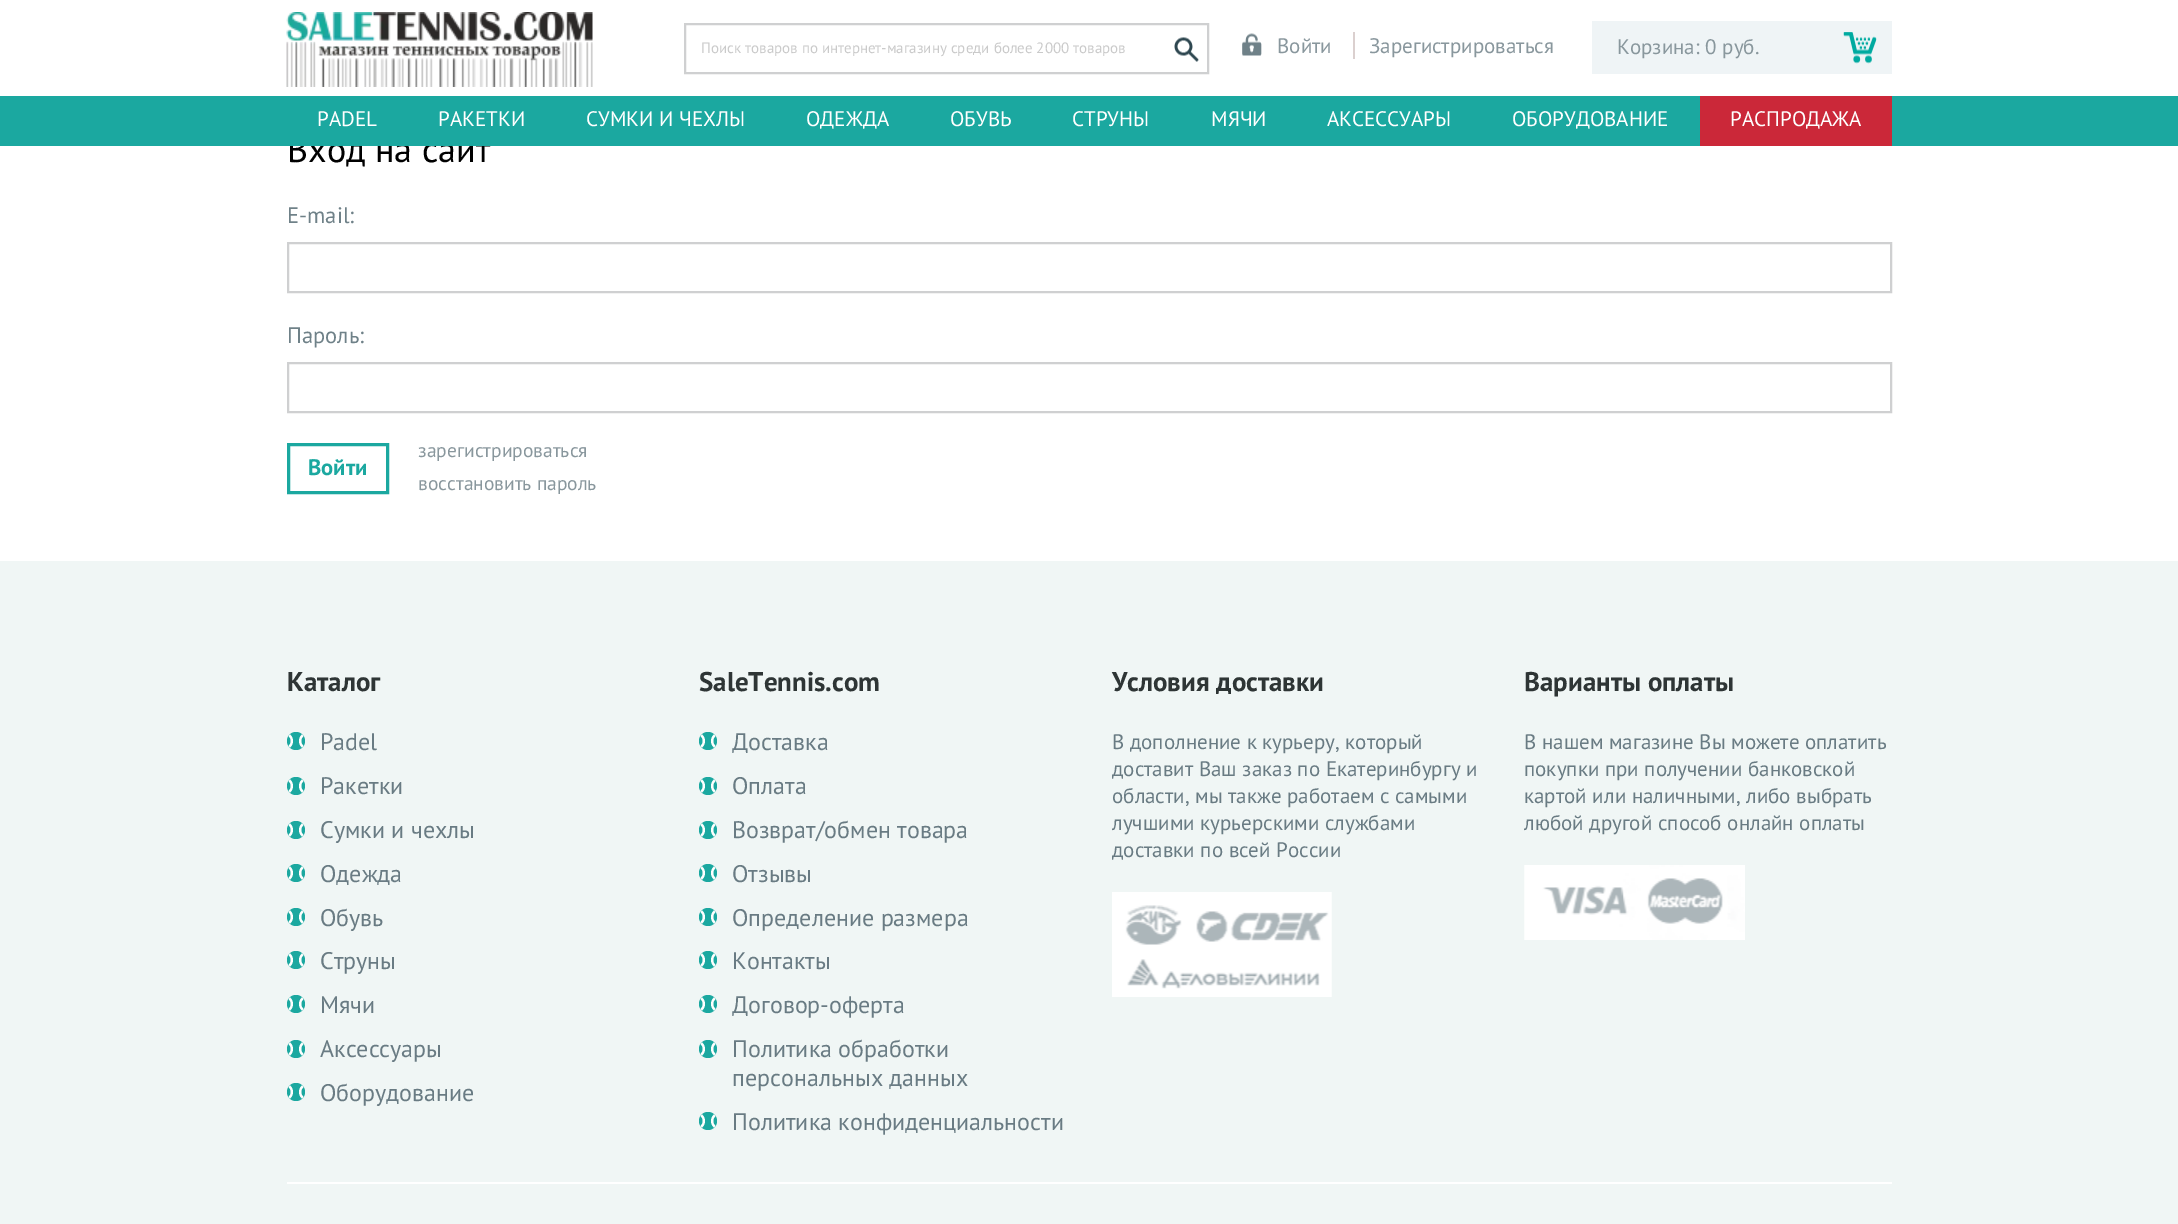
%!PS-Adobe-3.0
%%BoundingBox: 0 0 2178 1224
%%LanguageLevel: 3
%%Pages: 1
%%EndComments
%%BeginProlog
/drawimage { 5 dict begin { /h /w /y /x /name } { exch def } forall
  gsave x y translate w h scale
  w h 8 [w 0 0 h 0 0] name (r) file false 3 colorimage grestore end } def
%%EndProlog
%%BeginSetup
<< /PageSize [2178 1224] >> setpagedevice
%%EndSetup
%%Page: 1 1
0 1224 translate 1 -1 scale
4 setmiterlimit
1 setgray
0 0 2178 1224 rectfill
(images/1.raw) 286 12 307 75 drawimage
0.812 0.816 0.82 setrgbcolor
2 setlinewidth
685 24 523 49 rectstroke
(images/2.raw) 1174 37 25 25 drawimage
0.859 0.816 0.812 setrgbcolor
1353 32 2 27 rectfill
(images/3.raw) 1242 33 20 23 drawimage
0.937 0.957 0.965 setrgbcolor
1592 21 300 53 rectfill
(images/4.raw) 1843 32 34 32 drawimage
0.812 0.816 0.82 setrgbcolor
288 243 1603 49 rectstroke
288 363 1603 49 rectstroke
0.106 0.659 0.627 setrgbcolor
3 setlinewidth
288.5 444.5 99 48 rectstroke
0.941 0.965 0.961 setrgbcolor
0 561 2178 663 rectfill
0.106 0.659 0.627 setrgbcolor
newpath 296 741 9 0 360 arc closepath fill
1 setgray
newpath 290 734.5 moveto 294 738 294 744 290 747.5 curveto 288.5 746 lineto 291.5 743.5 291.5 738.5 288.5 736 curveto closepath 302 734.5 moveto 298 738 298 744 302 747.5 curveto 303.5 746 lineto 300.5 743.5 300.5 738.5 303.5 736 curveto closepath fill
0.106 0.659 0.627 setrgbcolor
newpath 296 786 9 0 360 arc closepath fill
1 setgray
newpath 290 779.5 moveto 294 783 294 789 290 792.5 curveto 288.5 791 lineto 291.5 788.5 291.5 783.5 288.5 781 curveto closepath 302 779.5 moveto 298 783 298 789 302 792.5 curveto 303.5 791 lineto 300.5 788.5 300.5 783.5 303.5 781 curveto closepath fill
0.106 0.659 0.627 setrgbcolor
newpath 296 830 9 0 360 arc closepath fill
1 setgray
newpath 290 823.5 moveto 294 827 294 833 290 836.5 curveto 288.5 835 lineto 291.5 832.5 291.5 827.5 288.5 825 curveto closepath 302 823.5 moveto 298 827 298 833 302 836.5 curveto 303.5 835 lineto 300.5 832.5 300.5 827.5 303.5 825 curveto closepath fill
0.106 0.659 0.627 setrgbcolor
newpath 296 873 9 0 360 arc closepath fill
1 setgray
newpath 290 866.5 moveto 294 870 294 876 290 879.5 curveto 288.5 878 lineto 291.5 875.5 291.5 870.5 288.5 868 curveto closepath 302 866.5 moveto 298 870 298 876 302 879.5 curveto 303.5 878 lineto 300.5 875.5 300.5 870.5 303.5 868 curveto closepath fill
0.106 0.659 0.627 setrgbcolor
newpath 296 917 9 0 360 arc closepath fill
1 setgray
newpath 290 910.5 moveto 294 914 294 920 290 923.5 curveto 288.5 922 lineto 291.5 919.5 291.5 914.5 288.5 912 curveto closepath 302 910.5 moveto 298 914 298 920 302 923.5 curveto 303.5 922 lineto 300.5 919.5 300.5 914.5 303.5 912 curveto closepath fill
0.106 0.659 0.627 setrgbcolor
newpath 296 960 9 0 360 arc closepath fill
1 setgray
newpath 290 953.5 moveto 294 957 294 963 290 966.5 curveto 288.5 965 lineto 291.5 962.5 291.5 957.5 288.5 955 curveto closepath 302 953.5 moveto 298 957 298 963 302 966.5 curveto 303.5 965 lineto 300.5 962.5 300.5 957.5 303.5 955 curveto closepath fill
0.106 0.659 0.627 setrgbcolor
newpath 296 1004 9 0 360 arc closepath fill
1 setgray
newpath 290 997.5 moveto 294 1001 294 1007 290 1010.5 curveto 288.5 1009 lineto 291.5 1006.5 291.5 1001.5 288.5 999 curveto closepath 302 997.5 moveto 298 1001 298 1007 302 1010.5 curveto 303.5 1009 lineto 300.5 1006.5 300.5 1001.5 303.5 999 curveto closepath fill
0.106 0.659 0.627 setrgbcolor
newpath 296 1049 9 0 360 arc closepath fill
1 setgray
newpath 290 1042.5 moveto 294 1046 294 1052 290 1055.5 curveto 288.5 1054 lineto 291.5 1051.5 291.5 1046.5 288.5 1044 curveto closepath 302 1042.5 moveto 298 1046 298 1052 302 1055.5 curveto 303.5 1054 lineto 300.5 1051.5 300.5 1046.5 303.5 1044 curveto closepath fill
0.106 0.659 0.627 setrgbcolor
newpath 296 1092 9 0 360 arc closepath fill
1 setgray
newpath 290 1085.5 moveto 294 1089 294 1095 290 1098.5 curveto 288.5 1097 lineto 291.5 1094.5 291.5 1089.5 288.5 1087 curveto closepath 302 1085.5 moveto 298 1089 298 1095 302 1098.5 curveto 303.5 1097 lineto 300.5 1094.5 300.5 1089.5 303.5 1087 curveto closepath fill
0.106 0.659 0.627 setrgbcolor
newpath 708 741 9 0 360 arc closepath fill
1 setgray
newpath 702 734.5 moveto 706 738 706 744 702 747.5 curveto 700.5 746 lineto 703.5 743.5 703.5 738.5 700.5 736 curveto closepath 714 734.5 moveto 710 738 710 744 714 747.5 curveto 715.5 746 lineto 712.5 743.5 712.5 738.5 715.5 736 curveto closepath fill
0.106 0.659 0.627 setrgbcolor
newpath 708 786 9 0 360 arc closepath fill
1 setgray
newpath 702 779.5 moveto 706 783 706 789 702 792.5 curveto 700.5 791 lineto 703.5 788.5 703.5 783.5 700.5 781 curveto closepath 714 779.5 moveto 710 783 710 789 714 792.5 curveto 715.5 791 lineto 712.5 788.5 712.5 783.5 715.5 781 curveto closepath fill
0.106 0.659 0.627 setrgbcolor
newpath 708 830 9 0 360 arc closepath fill
1 setgray
newpath 702 823.5 moveto 706 827 706 833 702 836.5 curveto 700.5 835 lineto 703.5 832.5 703.5 827.5 700.5 825 curveto closepath 714 823.5 moveto 710 827 710 833 714 836.5 curveto 715.5 835 lineto 712.5 832.5 712.5 827.5 715.5 825 curveto closepath fill
0.106 0.659 0.627 setrgbcolor
newpath 708 873 9 0 360 arc closepath fill
1 setgray
newpath 702 866.5 moveto 706 870 706 876 702 879.5 curveto 700.5 878 lineto 703.5 875.5 703.5 870.5 700.5 868 curveto closepath 714 866.5 moveto 710 870 710 876 714 879.5 curveto 715.5 878 lineto 712.5 875.5 712.5 870.5 715.5 868 curveto closepath fill
0.106 0.659 0.627 setrgbcolor
newpath 708 917 9 0 360 arc closepath fill
1 setgray
newpath 702 910.5 moveto 706 914 706 920 702 923.5 curveto 700.5 922 lineto 703.5 919.5 703.5 914.5 700.5 912 curveto closepath 714 910.5 moveto 710 914 710 920 714 923.5 curveto 715.5 922 lineto 712.5 919.5 712.5 914.5 715.5 912 curveto closepath fill
0.106 0.659 0.627 setrgbcolor
newpath 708 960 9 0 360 arc closepath fill
1 setgray
newpath 702 953.5 moveto 706 957 706 963 702 966.5 curveto 700.5 965 lineto 703.5 962.5 703.5 957.5 700.5 955 curveto closepath 714 953.5 moveto 710 957 710 963 714 966.5 curveto 715.5 965 lineto 712.5 962.5 712.5 957.5 715.5 955 curveto closepath fill
0.106 0.659 0.627 setrgbcolor
newpath 708 1004 9 0 360 arc closepath fill
1 setgray
newpath 702 997.5 moveto 706 1001 706 1007 702 1010.5 curveto 700.5 1009 lineto 703.5 1006.5 703.5 1001.5 700.5 999 curveto closepath 714 997.5 moveto 710 1001 710 1007 714 1010.5 curveto 715.5 1009 lineto 712.5 1006.5 712.5 1001.5 715.5 999 curveto closepath fill
0.106 0.659 0.627 setrgbcolor
newpath 708 1049 9 0 360 arc closepath fill
1 setgray
newpath 702 1042.5 moveto 706 1046 706 1052 702 1055.5 curveto 700.5 1054 lineto 703.5 1051.5 703.5 1046.5 700.5 1044 curveto closepath 714 1042.5 moveto 710 1046 710 1052 714 1055.5 curveto 715.5 1054 lineto 712.5 1051.5 712.5 1046.5 715.5 1044 curveto closepath fill
0.106 0.659 0.627 setrgbcolor
newpath 708 1121 9 0 360 arc closepath fill
1 setgray
newpath 702 1114.5 moveto 706 1118 706 1124 702 1127.5 curveto 700.5 1126 lineto 703.5 1123.5 703.5 1118.5 700.5 1116 curveto closepath 714 1114.5 moveto 710 1118 710 1124 714 1127.5 curveto 715.5 1126 lineto 712.5 1123.5 712.5 1118.5 715.5 1116 curveto closepath fill
(images/5.raw) 1112 892 220 105 drawimage
(images/6.raw) 1524 865 221 75 drawimage
287 1182 1605 2 rectfill
/PTSans-Regular [15 0 0 -15 0 0] selectfont
0.792 setgray
701 53 moveto (Поиск товаров по интернет-магазину среди более 2000 товаров) show
/PTSans-Regular [21 0 0 -21 0 0] selectfont
0.537 0.592 0.616 setrgbcolor
1277 53 moveto (Войти) show
1369 53 moveto (Зарегистрироваться) show
1617 54 moveto (Корзина: 0 руб.) show
/PTSans-Regular [36 0 0 -36 0 0] selectfont
0 setgray
287 162 moveto (Вход на сайт) show
0.106 0.659 0.627 setrgbcolor
0 96 2178 50 rectfill
0.796 0.157 0.224 setrgbcolor
1700 96 192 50 rectfill
/PTSans-Regular [21 0 0 -21 0 0] selectfont
1 setgray
1730 126 moveto (РАСПРОДАЖА) show
1512 126 moveto (ОБОРУДОВАНИЕ) show
1327 126 moveto (АКСЕССУАРЫ) show
1211 126 moveto (МЯЧИ) show
1072 126 moveto (СТРУНЫ) show
950 126 moveto (ОБУВЬ) show
806 126 moveto (ОДЕЖДА) show
586 126 moveto (СУМКИ И ЧЕХЛЫ) show
438 126 moveto (РАКЕТКИ) show
317 126 moveto (PADEL) show
/PTSans-Regular [22.5 0 0 -22.5 0 0] selectfont
0.435 0.506 0.533 setrgbcolor
287 223 moveto (E-mail:) show
287 343 moveto (Пароль:) show
/PTSans-Bold [22.5 0 0 -22.5 0 0] selectfont
0.106 0.659 0.627 setrgbcolor
308 475 moveto (Войти) show
/PTSans-Regular [19.5 0 0 -19.5 0 0] selectfont
0.537 0.592 0.616 setrgbcolor
418 457 moveto (зарегистрироваться) show
418 490 moveto (восстановить пароль) show
/PTSans-Bold [27 0 0 -27 0 0] selectfont
0.18 0.208 0.208 setrgbcolor
287 691 moveto (Каталог) show
/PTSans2-Regular [24 0 0 -24 0 0] selectfont
0.412 0.482 0.514 setrgbcolor
320 750 moveto (Padel) show
320 794 moveto (Ракетки) show
320 838 moveto (Сумки и чехлы) show
320 882 moveto (Одежда) show
320 926 moveto (Обувь) show
320 969 moveto (Струны) show
320 1013 moveto (Мячи) show
320 1057 moveto (Аксессуары) show
320 1101 moveto (Оборудование) show
/PTSans-Bold [27 0 0 -27 0 0] selectfont
0.18 0.208 0.208 setrgbcolor
699 691 moveto (SaleTennis.com) show
/PTSans2-Regular [24 0 0 -24 0 0] selectfont
0.412 0.482 0.514 setrgbcolor
732 750 moveto (Доставка) show
732 794 moveto (Оплата) show
732 838 moveto (Возврат/обмен товара) show
732 882 moveto (Отзывы) show
732 926 moveto (Определение размера) show
732 969 moveto (Контакты) show
732 1013 moveto (Договор-оферта) show
732 1057 moveto (Политика обработки) show
732 1086 moveto (персональных данных) show
732 1130 moveto (Политика конфиденциальности) show
/PTSans-Bold [27 0 0 -27 0 0] selectfont
0.18 0.208 0.208 setrgbcolor
1112 691 moveto (Условия доставки) show
/PTSans-Regular [21 0 0 -21 0 0] selectfont
0.412 0.482 0.514 setrgbcolor
1112 749 moveto (В дополнение к курьеру, который) show
1112 776 moveto (доставит Ваш заказ по Екатеринбургу и) show
1112 803 moveto (области, мы также работаем с самыми) show
1112 830 moveto (лучшими курьерскими службами) show
1112 857 moveto (доставки по всей России) show
/PTSans-Bold [27 0 0 -27 0 0] selectfont
0.18 0.208 0.208 setrgbcolor
1524 691 moveto (Варианты оплаты) show
/PTSans-Regular [21 0 0 -21 0 0] selectfont
0.412 0.482 0.514 setrgbcolor
1524 749 moveto (В нашем магазине Вы можете оплатить) show
1524 776 moveto (покупки при получении банковской) show
1524 803 moveto (картой или наличными, либо выбрать) show
1524 830 moveto (любой другой способ онлайн оплаты) show
showpage
%%EOF
